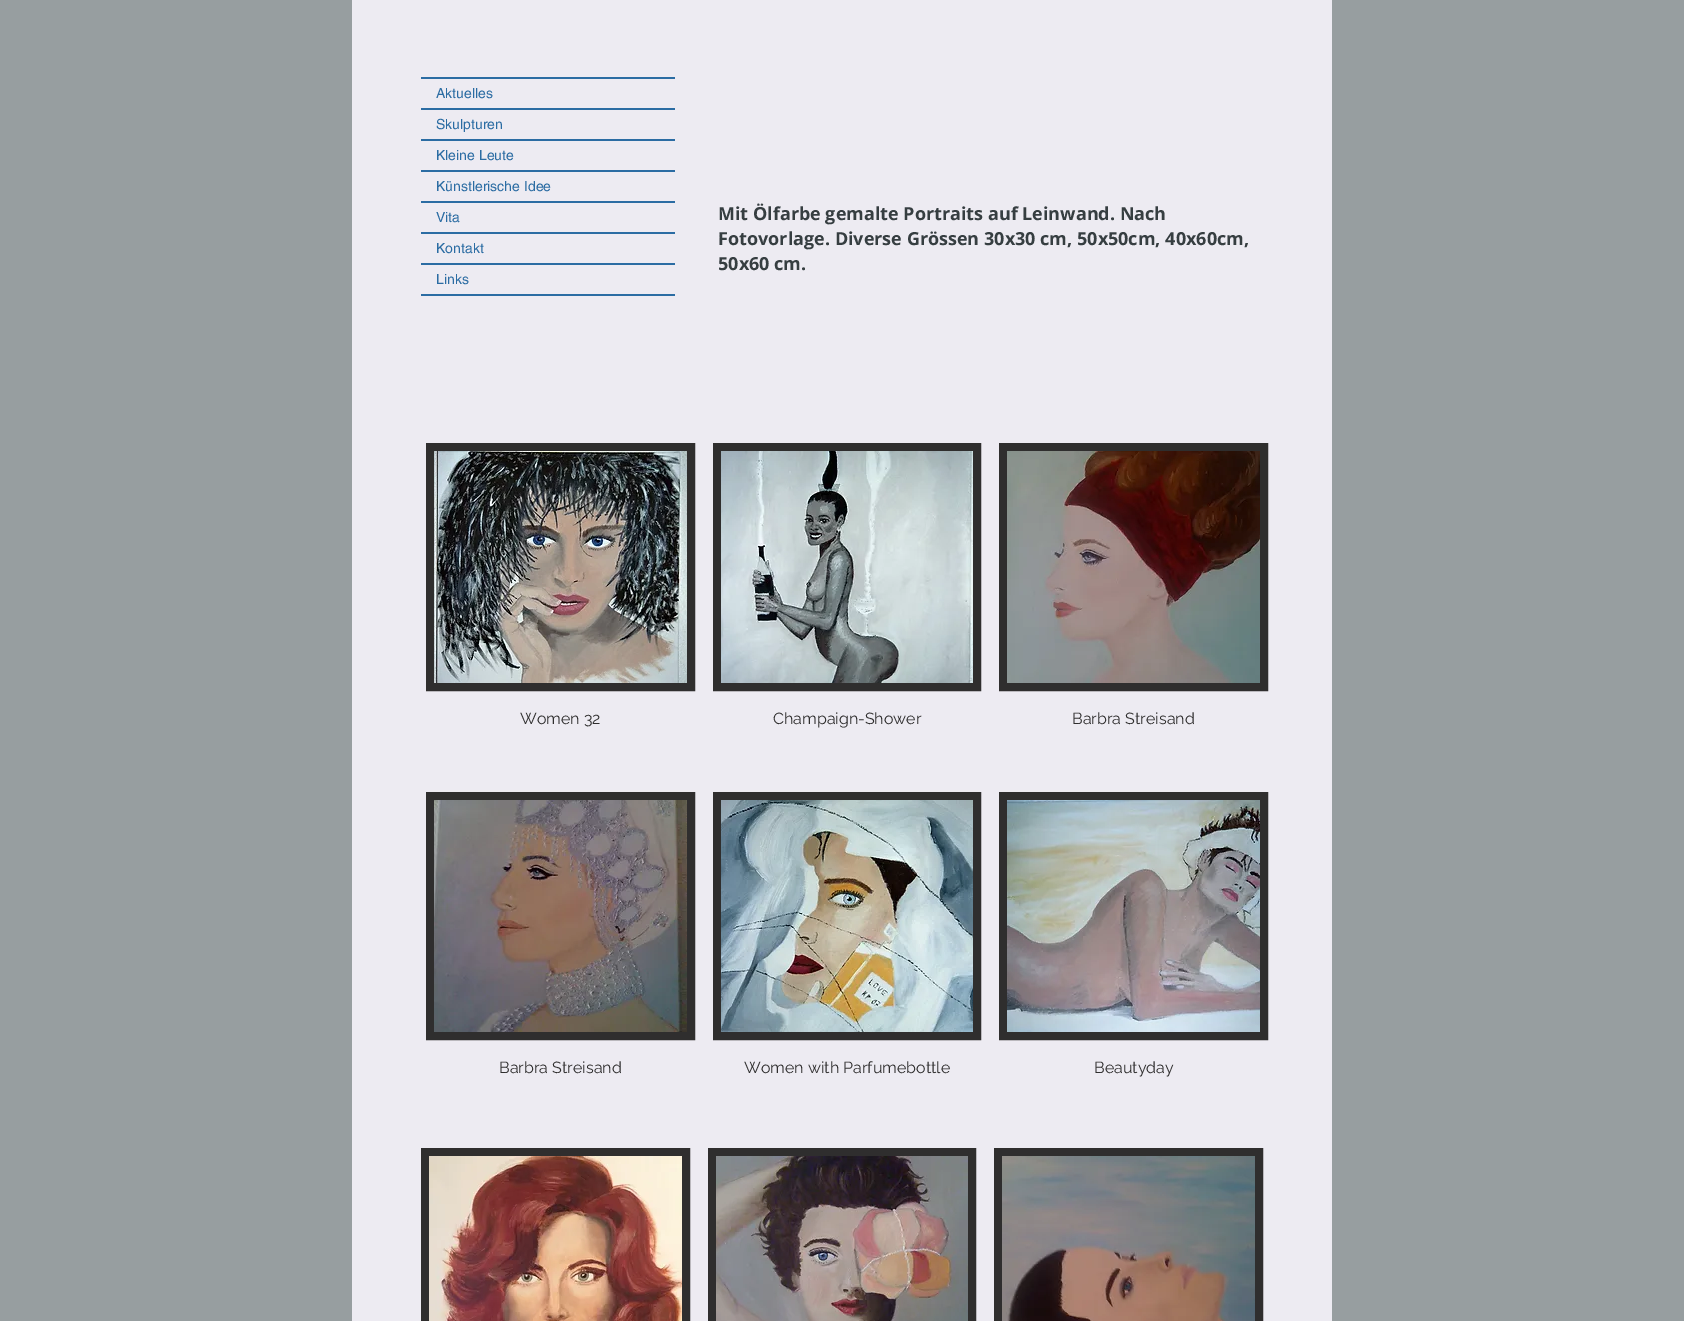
%!PS-Adobe-3.0
%%BoundingBox: 0 0 1684 1321
%%LanguageLevel: 3
%%Pages: 1
%%EndComments
%%BeginProlog
/drawimage { 5 dict begin { /h /w /y /x /name } { exch def } forall
  gsave x y translate w h scale
  w h 8 [w 0 0 h 0 0] name (r) file false 3 colorimage grestore end } def
%%EndProlog
%%BeginSetup
<< /PageSize [1684 1321] >> setpagedevice
%%EndSetup
%%Page: 1 1
0 1321 translate 1 -1 scale
4 setmiterlimit
0.592 0.62 0.627 setrgbcolor
0 0 1684 1321 rectfill
0.929 0.922 0.949 setrgbcolor
352 0 980 1321 rectfill
0.169 0.424 0.639 setrgbcolor
421 77 254 2 rectfill
421 294 254 2 rectfill
421 108 254 2 rectfill
421 139 254 2 rectfill
421 170 254 2 rectfill
421 201 254 2 rectfill
421 232 254 2 rectfill
421 263 254 2 rectfill
0.184 0.18 0.18 setrgbcolor
8 setlinewidth
430 447 261 240 rectstroke
(images/1.raw) 434 451 253 232 drawimage
717 447 260 240 rectstroke
(images/2.raw) 721 451 252 232 drawimage
1003 447 261 240 rectstroke
(images/3.raw) 1007 451 253 232 drawimage
430 796 261 240 rectstroke
(images/4.raw) 434 800 253 232 drawimage
717 796 260 240 rectstroke
(images/5.raw) 721 800 252 232 drawimage
1003 796 261 240 rectstroke
(images/6.raw) 1007 800 253 232 drawimage
425 1152 261 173 rectstroke
(images/7.raw) 429 1156 253 165 drawimage
712 1152 260 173 rectstroke
(images/8.raw) 716 1156 252 165 drawimage
998 1152 261 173 rectstroke
(images/9.raw) 1002 1156 253 165 drawimage
/helvetica-Regular [14 0 0 -14 0 0] selectfont
0.169 0.424 0.639 setrgbcolor
436 98 moveto (Aktuelles) show
436 129 moveto (Skulpturen) show
436 160 moveto (Kleine Leute) show
436 191 moveto (Künstlerische Idee) show
436 222 moveto (Vita) show
436 253 moveto (Kontakt) show
436 284 moveto (Links) show
/OpenSans-Bold [18 0 0 -18 0 0] selectfont
0.212 0.243 0.255 setrgbcolor
718 220 moveto (Mit Ölfarbe gemalte Portraits auf Leinwand. Nach) show
718 245 moveto (Fotovorlage. Diverse Grössen 30x30 cm, 50x50cm, 40x60cm,) show
718 270 moveto (50x60 cm.) show
/Raleway-Regular [16 0 0 -16 0 0] selectfont
0.184 0.18 0.18 setrgbcolor
520 724 moveto (Women 32) show
773 724 moveto (Champaign-Shower) show
1072 724 moveto (Barbra Streisand) show
499 1073 moveto (Barbra Streisand) show
744 1073 moveto (Women with Parfumebottle) show
1094 1073 moveto (Beautyday) show
showpage
%%EOF
